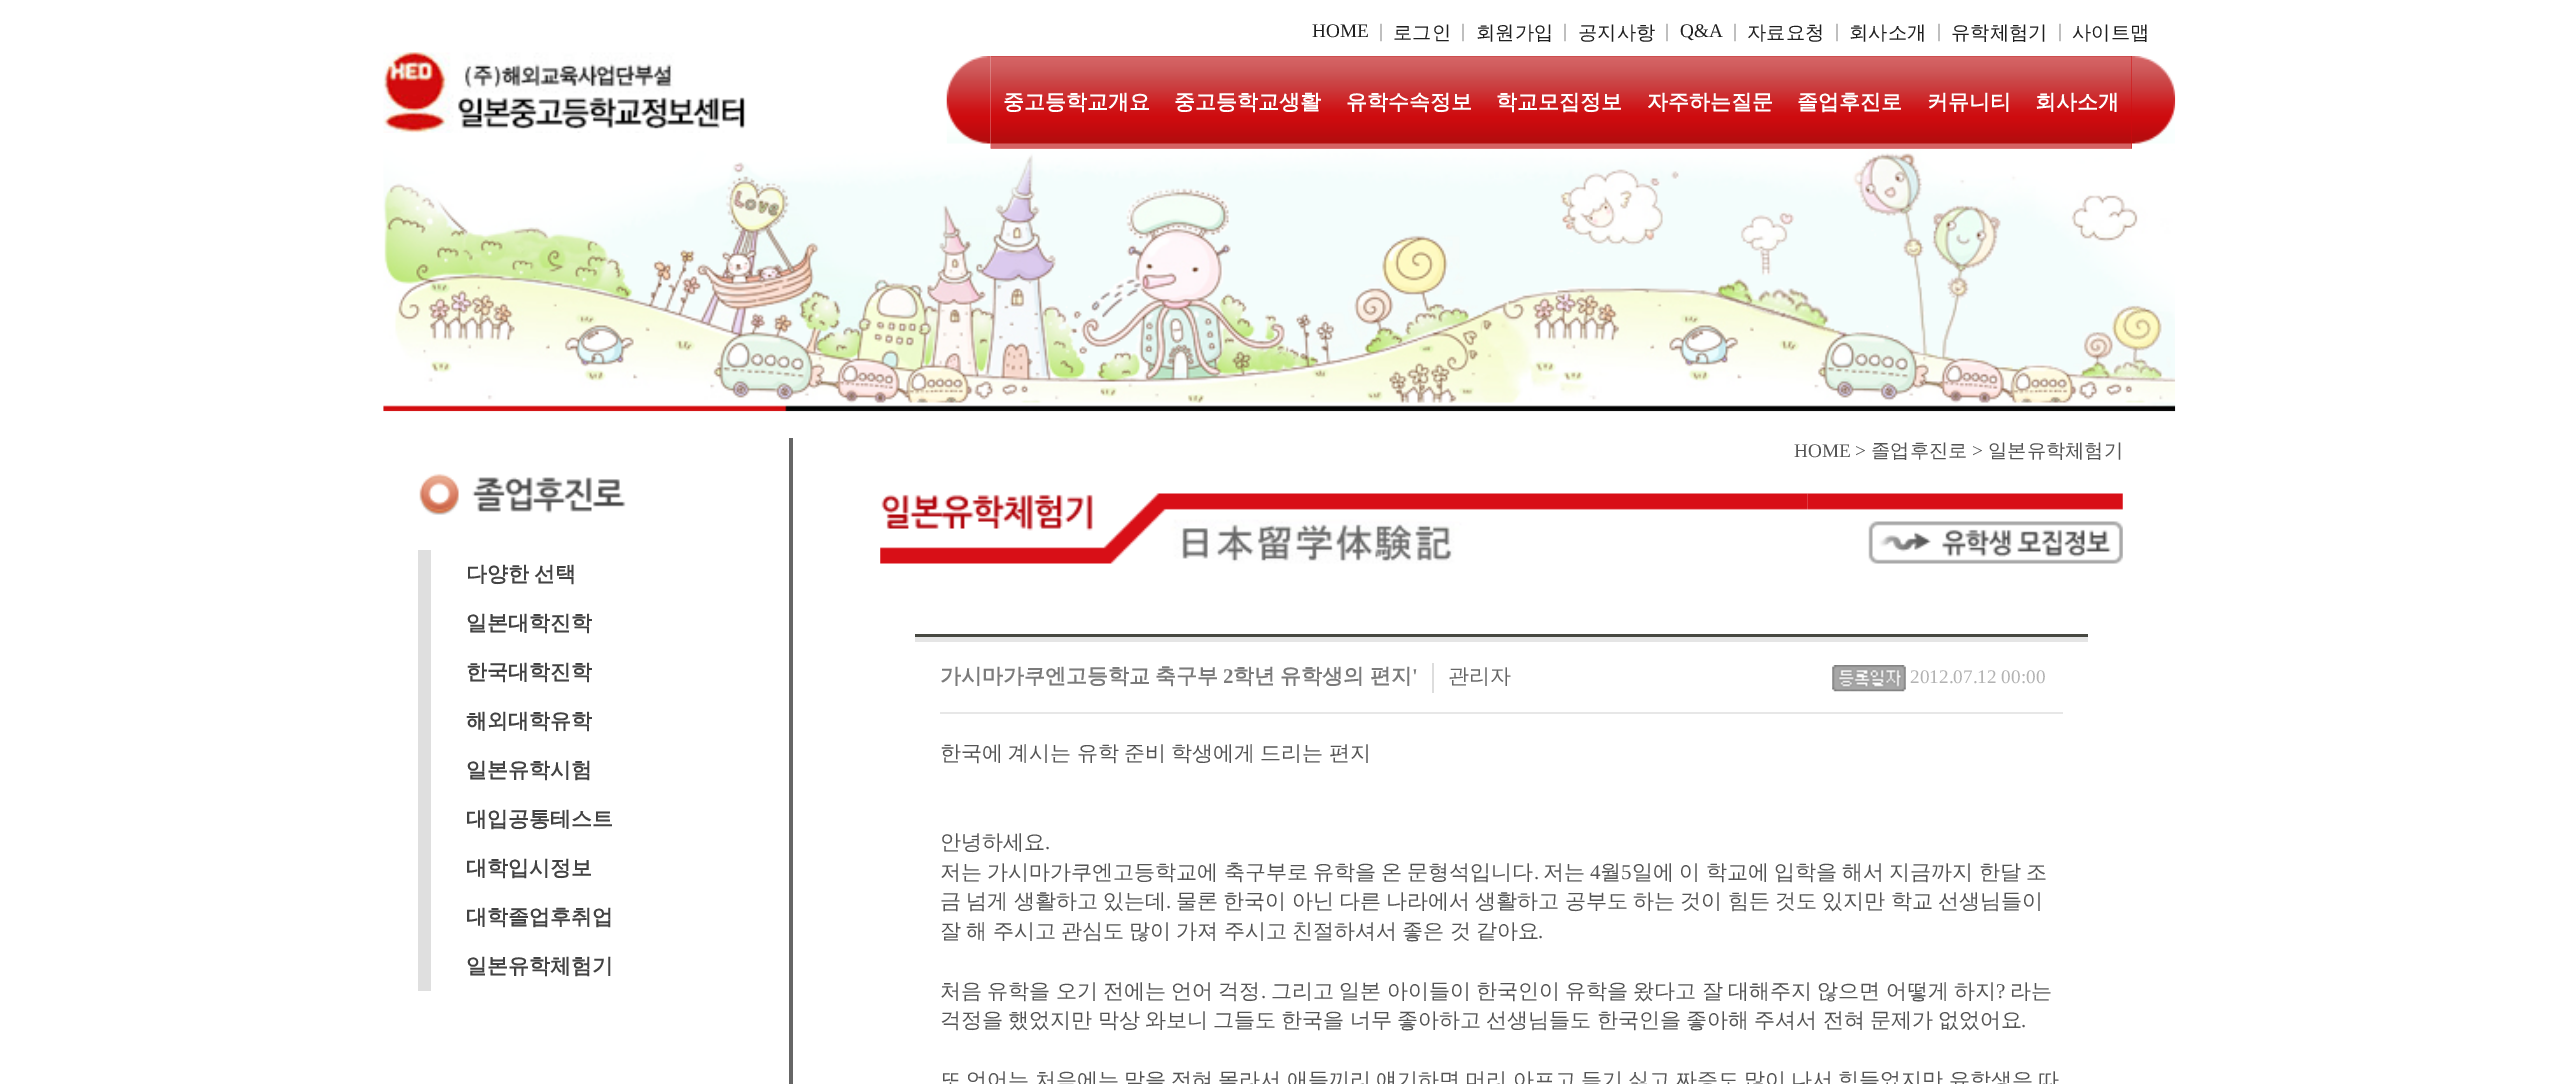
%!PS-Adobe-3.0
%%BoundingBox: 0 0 2557 1084
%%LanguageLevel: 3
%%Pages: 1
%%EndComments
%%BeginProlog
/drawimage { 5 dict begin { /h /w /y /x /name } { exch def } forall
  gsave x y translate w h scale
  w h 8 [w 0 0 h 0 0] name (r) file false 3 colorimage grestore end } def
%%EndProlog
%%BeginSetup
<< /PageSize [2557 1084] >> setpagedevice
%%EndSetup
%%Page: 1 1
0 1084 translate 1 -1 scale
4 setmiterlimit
1 setgray
0 0 2557 1084 rectfill
(images/1.raw) 383 52 363 81 drawimage
0.824 0.043 0.055 setrgbcolor
991 56 1141 93 rectfill
(images/3.raw) 990 56 1142 93 drawimage
(images/2.raw) 946 56 45 88 drawimage
(images/4.raw) 2132 56 44 88 drawimage
(images/5.raw) 383 148 1793 264 drawimage
(images/6.raw) 419 473 207 42 drawimage
0.875 setgray
418 550 13 441 rectfill
0.4 setgray
789 438 4 646 rectfill
(images/8.raw) 1807 493 316 71 drawimage
(images/7.raw) 880 493 928 71 drawimage
0.278 0.282 0.255 setrgbcolor
915 634 1173 3 rectfill
0.898 setgray
915 637 1173 5 rectfill
0.867 setgray
1432 663 2 30 rectfill
(images/9.raw) 1832 665 74 27 drawimage
0.906 setgray
940 712 1123 2 rectfill
/LiberationSerif-Regular [19.25 0 0 -19.25 0 0] selectfont
0.122 setgray
1312 37 moveto (HOME) show
0.533 setgray
1379 37 moveto (|) show
/WenQuanYiZenHei-Medium [19.25 0 0 -19.25 0 0] selectfont
0.122 setgray
1393 39 moveto (로그인) show
/LiberationSerif-Regular [19.25 0 0 -19.25 0 0] selectfont
0.533 setgray
1461 37 moveto (|) show
/WenQuanYiZenHei-Medium [19.25 0 0 -19.25 0 0] selectfont
0.122 setgray
1476 39 moveto (회원가입) show
/LiberationSerif-Regular [19.25 0 0 -19.25 0 0] selectfont
0.533 setgray
1563 37 moveto (|) show
/WenQuanYiZenHei-Medium [19.25 0 0 -19.25 0 0] selectfont
0.122 setgray
1578 39 moveto (공지사항) show
/LiberationSerif-Regular [19.25 0 0 -19.25 0 0] selectfont
0.533 setgray
1665 37 moveto (|) show
0.122 setgray
1680 37 moveto (Q&A) show
0.533 setgray
1733 37 moveto (|) show
/WenQuanYiZenHei-Medium [19.25 0 0 -19.25 0 0] selectfont
0.122 setgray
1747 39 moveto (자료요청) show
/LiberationSerif-Regular [19.25 0 0 -19.25 0 0] selectfont
0.533 setgray
1835 37 moveto (|) show
/WenQuanYiZenHei-Medium [19.25 0 0 -19.25 0 0] selectfont
0.122 setgray
1849 39 moveto (회사소개) show
/LiberationSerif-Regular [19.25 0 0 -19.25 0 0] selectfont
0.533 setgray
1937 37 moveto (|) show
/WenQuanYiZenHei-Medium [19.25 0 0 -19.25 0 0] selectfont
0.122 setgray
1951 39 moveto (유학체험기) show
/LiberationSerif-Regular [19.25 0 0 -19.25 0 0] selectfont
0.533 setgray
2058 37 moveto (|) show
/WenQuanYiZenHei-Medium [19.25 0 0 -19.25 0 0] selectfont
0.122 setgray
2072 39 moveto (사이트맵) show
/WenQuanYiZenHei-Bold [21 0 0 -21 0 0] selectfont
1 setgray
1003 109 moveto (중고등학교개요) show
1174 109 moveto (중고등학교생활) show
1346 109 moveto (유학수속정보) show
1496 109 moveto (학교모집정보) show
1647 109 moveto (자주하는질문) show
1797 109 moveto (졸업후진로) show
1927 109 moveto (커뮤니티) show
2035 109 moveto (회사소개) show
0.263 setgray
466 581 moveto -1 0 32 (다양한 선택) widthshow
466 630 moveto (일본대학진학) show
466 679 moveto (한국대학진학) show
466 728 moveto (해외대학유학) show
466 777 moveto (일본유학시험) show
466 826 moveto (대입공통테스트) show
466 875 moveto (대학입시정보) show
466 924 moveto (대학졸업후취업) show
466 973 moveto (일본유학체험기) show
/LiberationSerif-Regular [19.25 0 0 -19.25 0 0] selectfont
0.333 setgray
1794 457 moveto (HOME >) show
/WenQuanYiZenHei-Medium [19.25 0 0 -19.25 0 0] selectfont
1871 457 moveto (졸업후진로) show
/LiberationSerif-Regular [19.25 0 0 -19.25 0 0] selectfont
1972 457 moveto (>) show
/WenQuanYiZenHei-Medium [19.25 0 0 -19.25 0 0] selectfont
1988 457 moveto (일본유학체험기) show
/WenQuanYiZenHei-Bold [21 0 0 -21 0 0] selectfont
0.482 setgray
940 683 moveto -1 0 32 (가시마가쿠엔고등학교 축구부) widthshow
/LiberationSerif-Bold [21 0 0 -21 0 0] selectfont
1223 683 moveto (2) show
/WenQuanYiZenHei-Bold [21 0 0 -21 0 0] selectfont
1233 683 moveto -1 0 32 (학년 유학생의 편지) widthshow
/LiberationSerif-Bold [21 0 0 -21 0 0] selectfont
1412 683 moveto (') show
/WenQuanYiZenHei-Medium [21 0 0 -21 0 0] selectfont
0.4 setgray
1448 683 moveto (관리자) show
/LiberationSerif-Regular [19.25 0 0 -19.25 0 0] selectfont
0.702 setgray
1910 683 moveto (2012.07.12 00:00) show
/WenQuanYiZenHei-Medium [21 0 0 -21 0 0] selectfont
0.333 setgray
940 760 moveto -1 0 32 (한국에 계시는 유학 준비 학생에게 드리는 편지) widthshow
940 849 moveto (안녕하세요) show
/LiberationSerif-Regular [21 0 0 -21 0 0] selectfont
1045 849 moveto (.) show
/WenQuanYiZenHei-Medium [21 0 0 -21 0 0] selectfont
940 879 moveto -1 0 32 (저는 가시마가쿠엔고등학교에 축구부로 유학을 온 문형석입니다) widthshow
/LiberationSerif-Regular [21 0 0 -21 0 0] selectfont
1534 879 moveto (.) show
/WenQuanYiZenHei-Medium [21 0 0 -21 0 0] selectfont
1543 879 moveto (저는) show
/LiberationSerif-Regular [21 0 0 -21 0 0] selectfont
1590 879 moveto (4) show
/WenQuanYiZenHei-Medium [21 0 0 -21 0 0] selectfont
1600 879 moveto (월) show
/LiberationSerif-Regular [21 0 0 -21 0 0] selectfont
1621 879 moveto (5) show
/WenQuanYiZenHei-Medium [21 0 0 -21 0 0] selectfont
1632 879 moveto -1 0 32 (일에 이 학교에 입학을 해서 지금까지 한달 조) widthshow
940 908 moveto -1 0 32 (금 넘게 생활하고 있는데) widthshow
/LiberationSerif-Regular [21 0 0 -21 0 0] selectfont
1166 908 moveto (.) show
/WenQuanYiZenHei-Medium [21 0 0 -21 0 0] selectfont
1176 908 moveto -1 0 32 (물론 한국이 아닌 다른 나라에서 생활하고 공부도 하는 것이 힘든 것도 있지만 학교 선생님들이) widthshow
940 938 moveto -1 0 32 (잘 해 주시고 관심도 많이 가져 주시고 친절하셔서 좋은 것 같아요) widthshow
/LiberationSerif-Regular [21 0 0 -21 0 0] selectfont
1538 938 moveto (.) show
/WenQuanYiZenHei-Medium [21 0 0 -21 0 0] selectfont
940 998 moveto -1 0 32 (처음 유학을 오기 전에는 언어 걱정) widthshow
/LiberationSerif-Regular [21 0 0 -21 0 0] selectfont
1261 998 moveto (.) show
/WenQuanYiZenHei-Medium [21 0 0 -21 0 0] selectfont
1271 998 moveto -1 0 32 (그리고 일본 아이들이 한국인이 유학을 왔다고 잘 대해주지 않으면 어떻게 하지) widthshow
/LiberationSerif-Regular [21 0 0 -21 0 0] selectfont
1996 998 moveto (?) show
/WenQuanYiZenHei-Medium [21 0 0 -21 0 0] selectfont
2010 998 moveto (라는) show
940 1027 moveto -1 0 32 (걱정을 했었지만 막상 와보니 그들도 한국을 너무 좋아하고 선생님들도 한국인을 좋아해 주셔서 전혀 문제가 없었어요) widthshow
/LiberationSerif-Regular [21 0 0 -21 0 0] selectfont
2021 1027 moveto (.) show
/WenQuanYiZenHei-Medium [21 0 0 -21 0 0] selectfont
940 1087 moveto -1 0 32 (또 언어는 처음에는 말을 전혀 몰라서 애들끼리 얘기하면 머리 아프고 듣기 싫고 짜증도 많이 나서 힘들었지만 유학생은 따) widthshow
showpage
%%EOF
